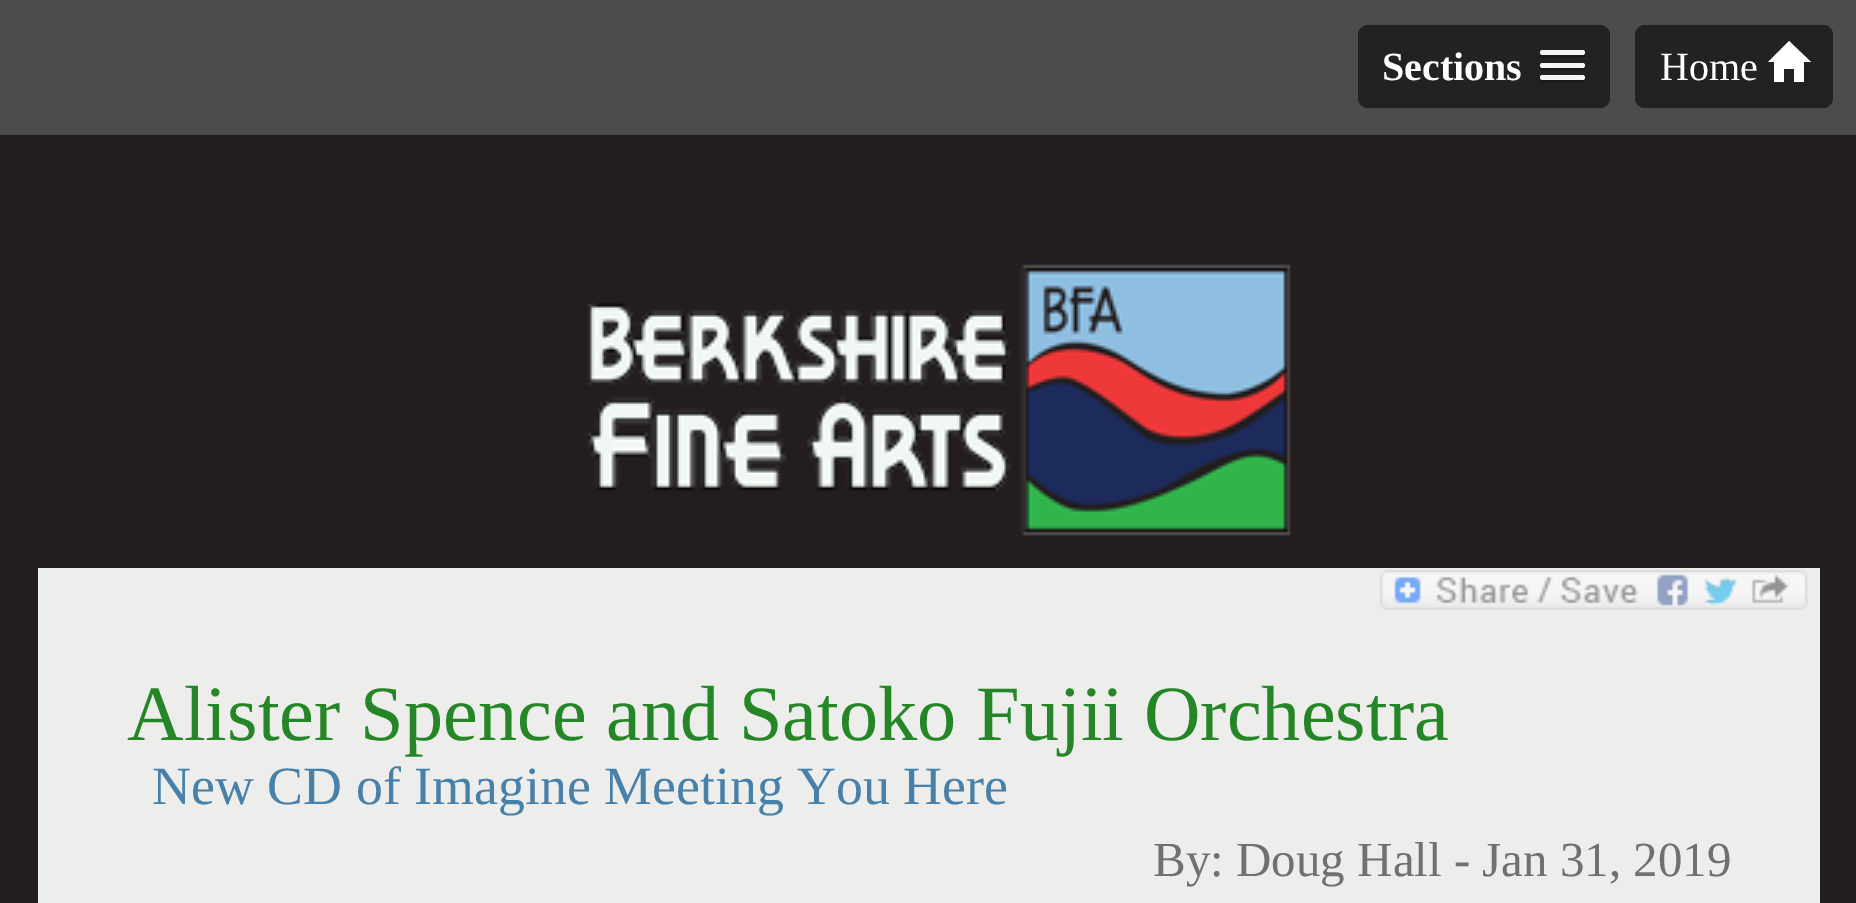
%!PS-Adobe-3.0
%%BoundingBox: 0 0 1856 903
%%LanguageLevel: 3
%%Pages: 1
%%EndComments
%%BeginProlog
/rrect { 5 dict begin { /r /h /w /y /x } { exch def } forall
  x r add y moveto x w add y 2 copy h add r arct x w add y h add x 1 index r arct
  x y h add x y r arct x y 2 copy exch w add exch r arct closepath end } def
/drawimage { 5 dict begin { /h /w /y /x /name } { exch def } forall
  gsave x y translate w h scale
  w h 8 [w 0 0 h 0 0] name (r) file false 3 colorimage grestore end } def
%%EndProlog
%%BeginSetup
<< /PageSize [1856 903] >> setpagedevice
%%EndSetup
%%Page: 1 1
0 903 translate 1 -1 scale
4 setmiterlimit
0.137 0.114 0.114 setrgbcolor
0 0 1856 903 rectfill
0.298 setgray
0 0 1856 135 rectfill
0.133 setgray
1358 25 252 83 10 rrect fill
0.102 setgray
newpath 1540 54 moveto 1537 58 1545 58 1549 58 curveto 1576 58 lineto 1580 58 1588 58 1585 54 curveto 1583 55 lineto 1542 55 lineto closepath fill
0.961 setgray
1540 50 45 5 2.5 rrect fill
0.102 setgray
newpath 1540 66 moveto 1537 71 1549 70 1549 70 curveto 1576 70 lineto 1576 70 1588 71 1585 66 curveto 1584 67 1583 68 1582 68 curveto 1542 68 lineto 1542 68 1541 67 1540 66 curveto closepath fill
0.961 setgray
1540 63 45 5 2.5 rrect fill
0.102 setgray
newpath 1540 79 moveto 1537 83 1545 83 1549 83 curveto 1576 83 lineto 1580 83 1588 83 1585 79 curveto 1583 80 lineto 1542 80 lineto closepath fill
0.961 setgray
1540 75 45 5 2.5 rrect fill
0.133 setgray
1635 25 198 83 10 rrect fill
1 setgray
newpath 1768 62 moveto 1789 41 lineto 1811 62 lineto 1804 62 lineto 1804 82 lineto 1794 82 lineto 1794 69 lineto 1784 69 lineto 1784 82 lineto 1774 82 lineto 1774 62 lineto closepath fill
(images/1.raw) 587 264 704 272 drawimage
0.929 0.929 0.925 setrgbcolor
38 568 1782 335 rectfill
(images/2.raw) 1380 570 428 40 drawimage
/LiberationSerif-Bold [40 0 0 -40 0 0] selectfont
1 setgray
1382 80 moveto (Sections) show
/LiberationSerif-Regular [40 0 0 -40 0 0] selectfont
1660 80 moveto (Home) show
/LiberationSerif-Regular [78.4 0 0 -78.4 0 0] selectfont
0.141 0.525 0.153 setrgbcolor
127 740 moveto (Alister Spence and Satoko Fujii Orchestra) show
/LiberationSerif-Regular [53.9 0 0 -53.9 0 0] selectfont
0.278 0.502 0.659 setrgbcolor
152 804 moveto (New CD of Imagine Meeting You Here) show
/LiberationSerif-Regular [49 0 0 -49 0 0] selectfont
0.439 setgray
1153 876 moveto (By: Doug Hall - Jan 31, 2019) show
showpage
%%EOF
